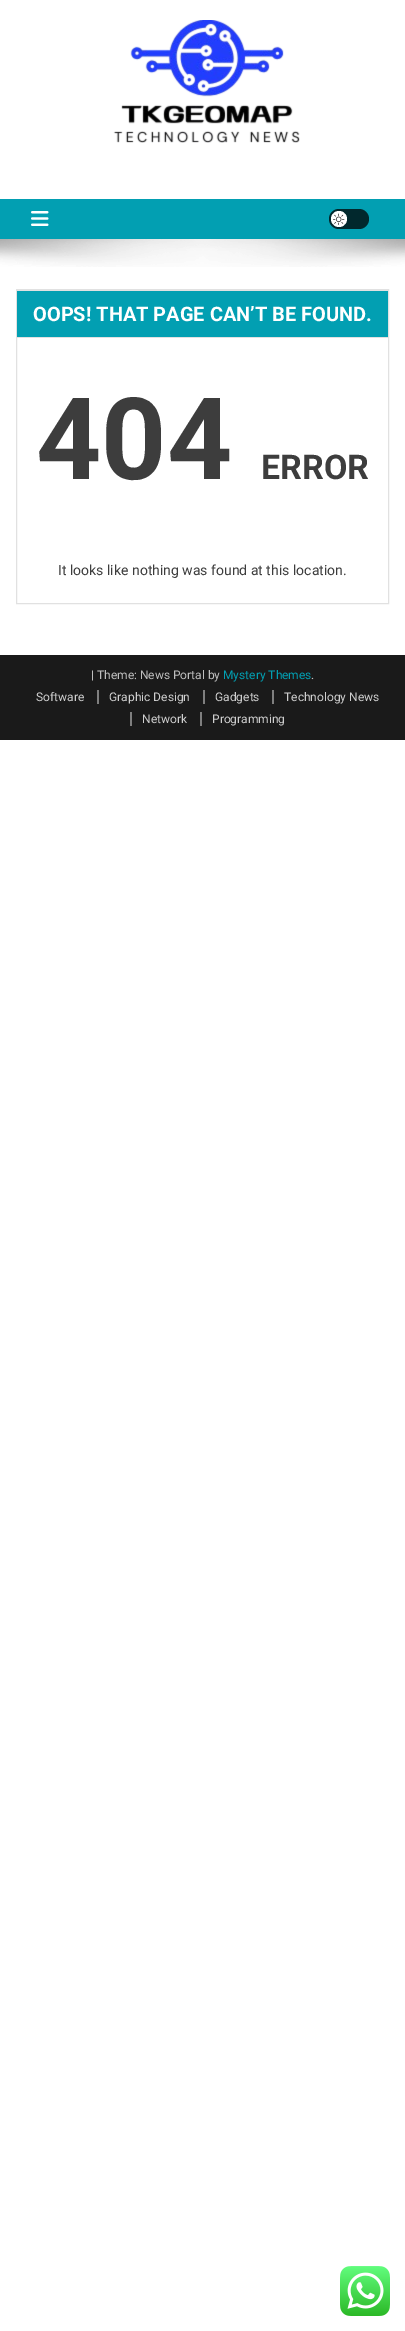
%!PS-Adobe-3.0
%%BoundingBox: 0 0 405 2331
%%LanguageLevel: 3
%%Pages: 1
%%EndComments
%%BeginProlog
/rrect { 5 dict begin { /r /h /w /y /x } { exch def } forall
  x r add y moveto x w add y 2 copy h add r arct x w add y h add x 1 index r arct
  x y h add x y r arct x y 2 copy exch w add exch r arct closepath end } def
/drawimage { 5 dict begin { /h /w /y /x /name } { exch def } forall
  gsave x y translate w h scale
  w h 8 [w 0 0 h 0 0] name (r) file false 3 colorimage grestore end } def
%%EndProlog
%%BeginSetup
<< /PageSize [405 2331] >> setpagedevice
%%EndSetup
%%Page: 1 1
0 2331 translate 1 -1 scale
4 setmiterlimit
1 setgray
0 0 405 2331 rectfill
(images/1.raw) 113 20 187 123 drawimage
0.008 0.624 0.698 setrgbcolor
0 199 405 40 rectfill
(images/2.raw) 31 211 18 15 drawimage
0.004 0.157 0.176 setrgbcolor
329 209 40 20 10 rrect fill
1 setgray
newpath 339 219 8 0 360 arc closepath fill
(images/3.raw) 333 213 12 12 drawimage
(images/4.raw) 0 239 405 28 drawimage
0.882 setgray
16.5 289.5 372 314 rectstroke
0.008 0.624 0.698 setrgbcolor
17 291 371 46 rectfill
0.882 setgray
17 290 371 1 rectfill
17 337 371 1 rectfill
0.102 setgray
0 655 405 85 rectfill
0.498 setgray
97 690 2 14 rectfill
203 690 2 14 rectfill
272 690 2 14 rectfill
130 712 2 14 rectfill
200 712 2 14 rectfill
(images/5.raw) 340 2266 50 50 drawimage
/Roboto-Bold [20 0 0 -20 0 0] selectfont
1 setgray
33 321 moveto (OOPS! THAT PAGE CAN’T BE FOUND.) show
/Roboto-Bold [114 0 0 -114 0 0] selectfont
0.239 setgray
36 479 moveto (404) show
/Roboto-Bold [34 0 0 -34 0 0] selectfont
261 479 moveto (ERROR) show
/Roboto-Regular [14 0 0 -14 0 0] selectfont
58 575 moveto (It looks like nothing was found at this location.) show
/Roboto-Regular [12 0 0 -12 0 0] selectfont
0.749 setgray
91 679 moveto (| Theme: News Portal by) show
0.008 0.624 0.698 setrgbcolor
223 679 moveto (Mystery Themes) show
0.749 setgray
311 679 moveto (.) show
0.812 setgray
36 701 moveto (Software) show
109 701 moveto (Graphic Design) show
215 701 moveto (Gadgets) show
284 701 moveto (Technology News) show
142 723 moveto (Network) show
212 723 moveto (Programming) show
showpage
%%EOF
